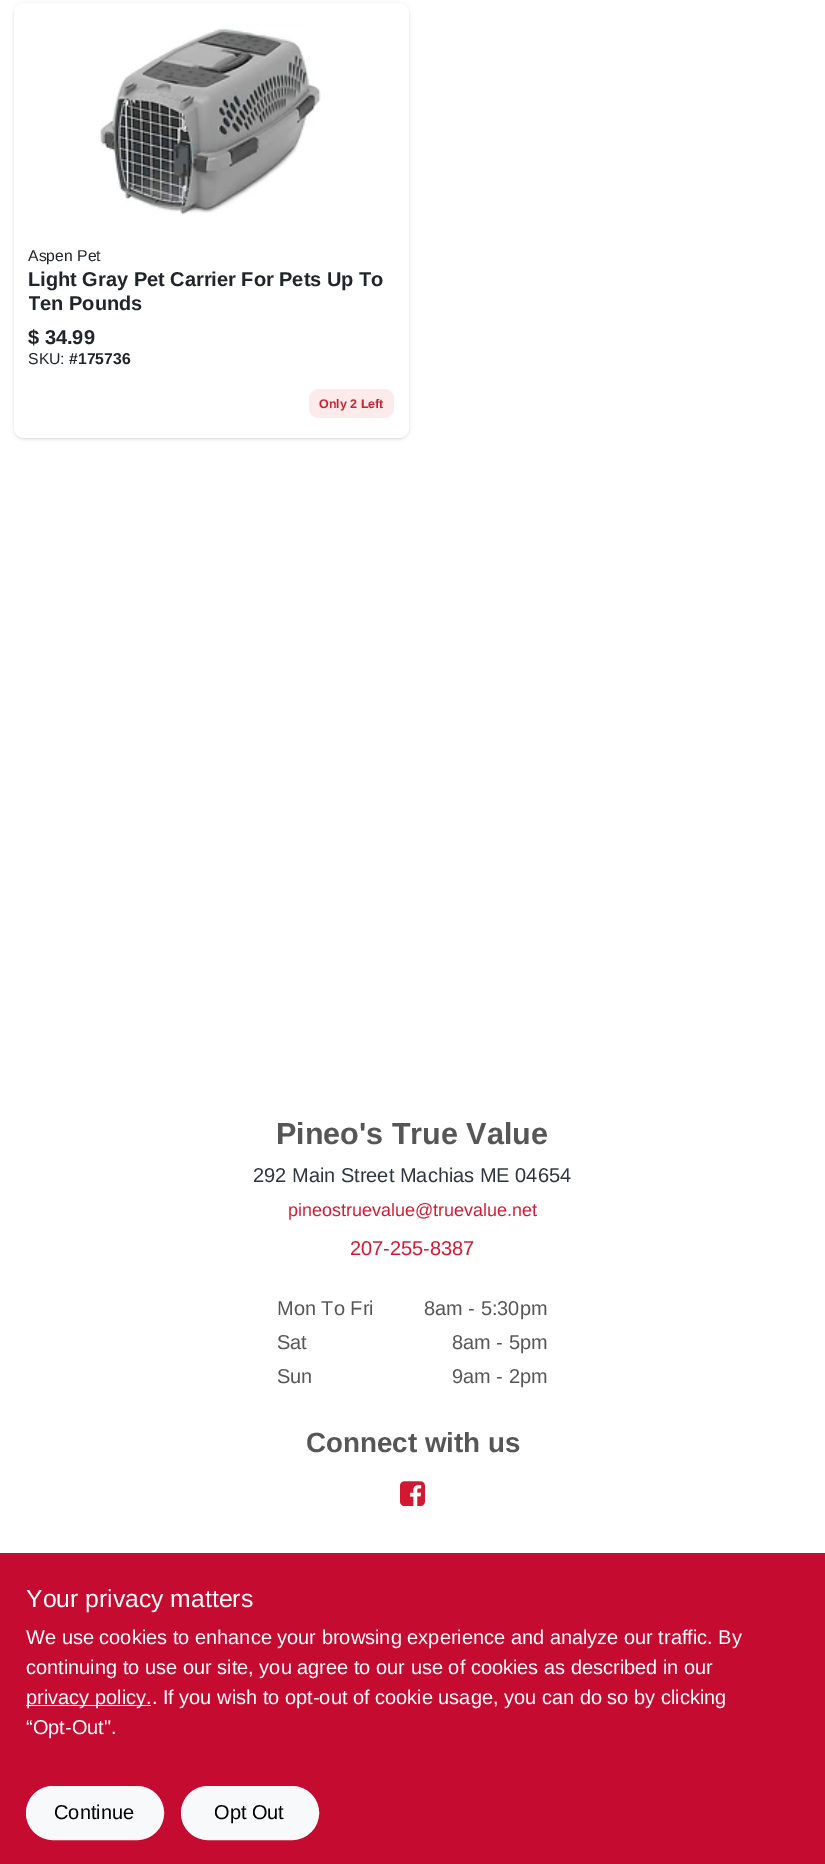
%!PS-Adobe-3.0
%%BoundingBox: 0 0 825 1864
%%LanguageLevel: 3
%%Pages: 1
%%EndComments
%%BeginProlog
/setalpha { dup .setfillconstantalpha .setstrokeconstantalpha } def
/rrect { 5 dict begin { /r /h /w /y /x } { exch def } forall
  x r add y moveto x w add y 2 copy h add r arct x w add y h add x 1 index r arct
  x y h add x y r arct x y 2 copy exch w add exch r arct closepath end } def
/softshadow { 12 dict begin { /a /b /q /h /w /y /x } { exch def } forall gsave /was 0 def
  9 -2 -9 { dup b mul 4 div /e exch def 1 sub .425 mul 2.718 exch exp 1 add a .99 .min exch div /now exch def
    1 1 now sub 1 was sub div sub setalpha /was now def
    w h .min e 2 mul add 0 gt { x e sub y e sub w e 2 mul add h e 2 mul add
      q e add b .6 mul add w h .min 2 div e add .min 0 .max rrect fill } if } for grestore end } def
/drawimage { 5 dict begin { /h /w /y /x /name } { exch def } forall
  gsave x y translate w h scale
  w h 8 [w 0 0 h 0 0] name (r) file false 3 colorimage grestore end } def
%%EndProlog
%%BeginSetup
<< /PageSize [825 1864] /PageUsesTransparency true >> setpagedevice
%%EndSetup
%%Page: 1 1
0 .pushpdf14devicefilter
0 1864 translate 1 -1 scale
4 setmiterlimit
1 setgray
0 0 825 1864 rectfill
0 setgray
14 4 395 435 10 1 0.06 softshadow
14 4 395 435 10 2 0.1 softshadow
1 setgray
14 3 395 435 10 rrect fill
(images/1.raw) 100 24 221 191 drawimage
0.992 0.918 0.918 setrgbcolor
309 389 85 29 10 rrect fill
(images/2.raw) 400 1481 25 25 drawimage
0.776 0.043 0.188 setrgbcolor
0 1553 825 311 rectfill
1 setgray
26 1705 125 1 rectfill
0.973 0.976 0.98 setrgbcolor
26.5 1786.5 137 53 26.5 rrect gsave fill grestore
stroke
181.5 1786.5 137 53 26.5 rrect gsave fill grestore
stroke
/LiberationSans-Regular [15.75 0 0 -15.75 0 0] selectfont
0.129 0.145 0.161 setrgbcolor
28 261 moveto (Aspen Pet) show
/LiberationSans-Bold [20 0 0 -20 0 0] selectfont
28 286 moveto (Light Gray Pet Carrier For Pets Up To) show
gsave
29 266 365 50 rectclip
28 310 moveto (Ten Pounds) show
grestore
28 344 moveto ($ 34.99) show
/LiberationSans-Regular [15.75 0 0 -15.75 0 0] selectfont
28 364 moveto (SKU:) show
/LiberationSans-Bold [15.75 0 0 -15.75 0 0] selectfont
69 364 moveto (#175736) show
/LiberationSans-Bold [12.5 0 0 -12.5 0 0] selectfont
0.784 0.137 0.2 setrgbcolor
319 408 moveto (Only 2 Left) show
/LiberationSans-Bold [30.5 0 0 -30.5 0 0] selectfont
0.337 setgray
276 1144 moveto (Pineo's True Value) show
/LiberationSans-Regular [20 0 0 -20 0 0] selectfont
0.184 0.208 0.251 setrgbcolor
253 1182 moveto (292 Main Street Machias ME 04654) show
/LiberationSans-Regular [18 0 0 -18 0 0] selectfont
0.827 0.098 0.192 setrgbcolor
288 1216 moveto (pineostruevalue@truevalue.net) show
/LiberationSans-Regular [20 0 0 -20 0 0] selectfont
350 1255 moveto (207-255-8387) show
0.337 setgray
277 1315 moveto (Mon To Fri) show
277 1349 moveto (Sat) show
277 1383 moveto (Sun) show
424 1315 moveto (8am - 5:30pm) show
452 1349 moveto (8am - 5pm) show
452 1383 moveto (9am - 2pm) show
/LiberationSans-Bold [27.75 0 0 -27.75 0 0] selectfont
306 1452 moveto (Connect with us) show
/LiberationSans-Regular [24.75 0 0 -24.75 0 0] selectfont
1 setgray
26 1607 moveto (Your privacy matters) show
/LiberationSans-Regular [20 0 0 -20 0 0] selectfont
26 1644 moveto (We use cookies to enhance your browsing experience and analyze our traffic. By) show
26 1674 moveto (continuing to use our site, you agree to our use of cookies as described in our) show
26 1704 moveto (privacy policy.. If you wish to opt-out of cookie usage, you can do so by clicking) show
26 1734 moveto (“Opt-Out".) show
0 setgray
54 1819 moveto (Continue) show
214 1819 moveto (Opt Out) show
.poppdf14devicefilter showpage
%%EOF
